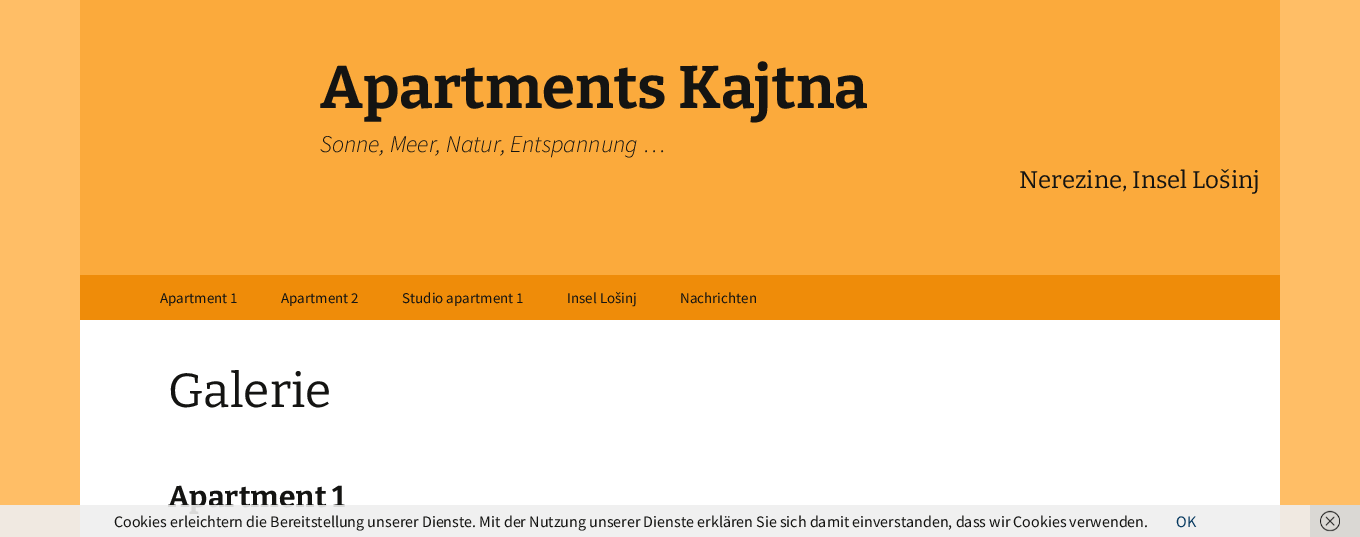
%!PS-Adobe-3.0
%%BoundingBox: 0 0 1360 537
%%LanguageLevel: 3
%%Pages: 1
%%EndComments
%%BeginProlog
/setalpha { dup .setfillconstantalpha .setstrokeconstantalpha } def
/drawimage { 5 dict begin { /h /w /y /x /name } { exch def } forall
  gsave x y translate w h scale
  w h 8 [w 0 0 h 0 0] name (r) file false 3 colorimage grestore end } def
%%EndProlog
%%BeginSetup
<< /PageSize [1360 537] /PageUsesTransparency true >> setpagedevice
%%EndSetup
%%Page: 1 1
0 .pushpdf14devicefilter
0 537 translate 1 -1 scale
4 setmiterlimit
1 0.745 0.4 setrgbcolor
0 0 1360 537 rectfill
1 setgray
80 320 1200 217 rectfill
0.984 0.667 0.235 setrgbcolor
80 0 1200 275 rectfill
0.937 0.549 0.035 setrgbcolor
80 275 1200 45 rectfill
0.855 0.847 0.831 setrgbcolor
1310 505 50 32 rectfill
(images/1.raw) 1320 510 20 22 drawimage
/Bitter-Bold [60 0 0 -60 0 0] selectfont
0.078 0.078 0.071 setrgbcolor
320 108 moveto (Apartments Kajtna) show
/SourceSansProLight-LightItalic [24 0 0 -24 0 0] selectfont
320 152 moveto (Sonne, Meer, Natur, Entspannung …) show
/Bitter-Regular [24 0 0 -24 0 0] selectfont
1019 188 moveto (Nerezine, Insel Lošinj) show
/SourceSansPro-Regular [15 0 0 -15 0 0] selectfont
160 303 moveto (Apartment 1) show
281 303 moveto (Apartment 2) show
402 303 moveto (Studio apartment 1) show
567 303 moveto (Insel Lošinj) show
680 303 moveto (Nachrichten) show
/Bitter-Regular [48 0 0 -48 0 0] selectfont
168 407 moveto (Galerie) show
/Bitter-Bold [30 0 0 -30 0 0] selectfont
168 507 moveto (Apartment 1) show
0.9 setalpha
0.933 setgray
0 505 1310 32 rectfill
/SourceSansPro-Regular [16 0 0 -16 0 0] selectfont
1 setalpha
0.078 0.078 0.071 setrgbcolor
114 527 moveto (Cookies erleichtern die Bereitstellung unserer Dienste. Mit der Nutzung unserer Dienste erklären Sie sich damit einverstanden, dass wir Cookies verwenden.) show
0.02 0.22 0.373 setrgbcolor
1176 527 moveto (OK) show
.poppdf14devicefilter showpage
%%EOF
